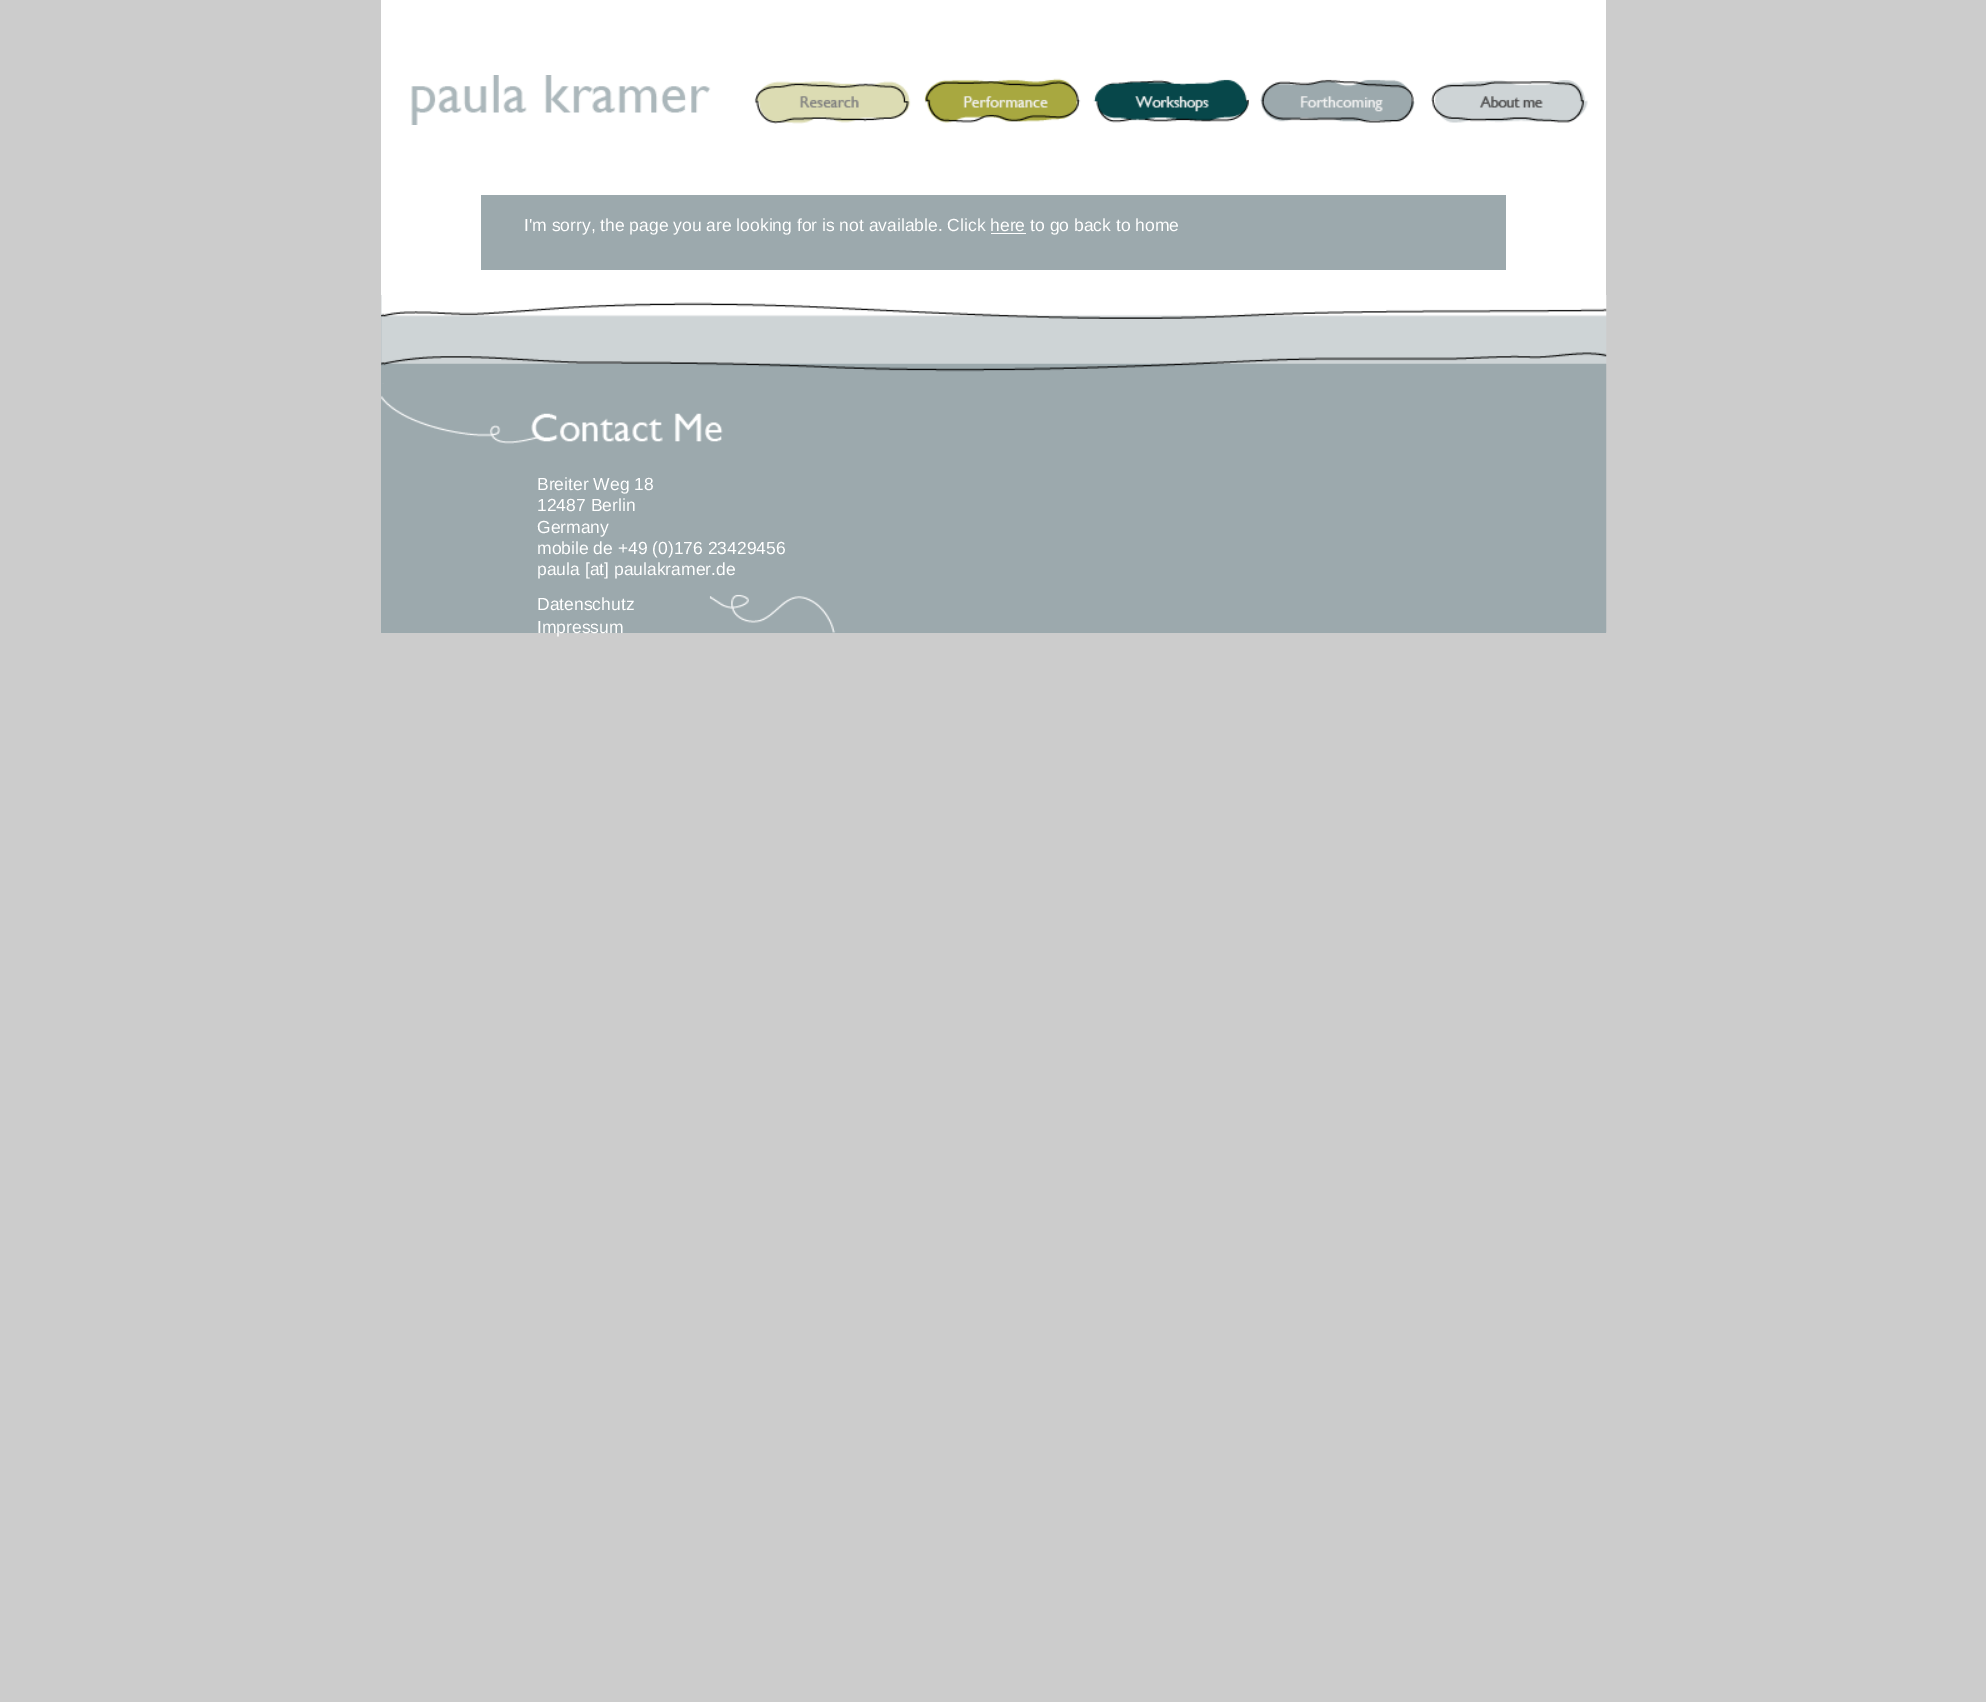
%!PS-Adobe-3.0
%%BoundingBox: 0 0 1986 1702
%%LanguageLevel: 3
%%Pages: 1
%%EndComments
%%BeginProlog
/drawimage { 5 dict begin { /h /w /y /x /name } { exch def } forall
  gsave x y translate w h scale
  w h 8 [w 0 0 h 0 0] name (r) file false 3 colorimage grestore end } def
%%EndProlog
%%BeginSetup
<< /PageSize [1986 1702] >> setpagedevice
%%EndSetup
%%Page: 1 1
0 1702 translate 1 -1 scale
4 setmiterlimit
0.8 setgray
0 0 1986 1702 rectfill
1 setgray
381 0 1225 295 rectfill
(images/1.raw) 411 75 300 50 drawimage
(images/2.raw) 754 81 157 43 drawimage
(images/3.raw) 924 78 157 45 drawimage
(images/4.raw) 1093 79 156 44 drawimage
(images/5.raw) 1260 79 155 44 drawimage
(images/6.raw) 1431 80 157 43 drawimage
0.612 0.663 0.678 setrgbcolor
481 195 1025 75 rectfill
1 setgray
991 233 35 1 rectfill
0.612 0.663 0.678 setrgbcolor
381 295 1225 338 rectfill
(images/7.raw) 381 295 1226 338 drawimage
(images/8.raw) 381 384 455 249 drawimage
/LiberationSans-Regular [17.5 0 0 -17.5 0 0] selectfont
1 setgray
524 231 moveto (I'm sorry, the page you are looking for is not available. Click here to go back to home) show
537 490 moveto (Breiter Weg 18) show
537 511 moveto (12487 Berlin) show
537 533 moveto (Germany) show
537 554 moveto (mobile de +49 \(0\)176 23429456) show
537 575 moveto (paula [at] paulakramer.de) show
537 610 moveto (Datenschutz) show
537 633 moveto (Impressum) show
showpage
%%EOF
